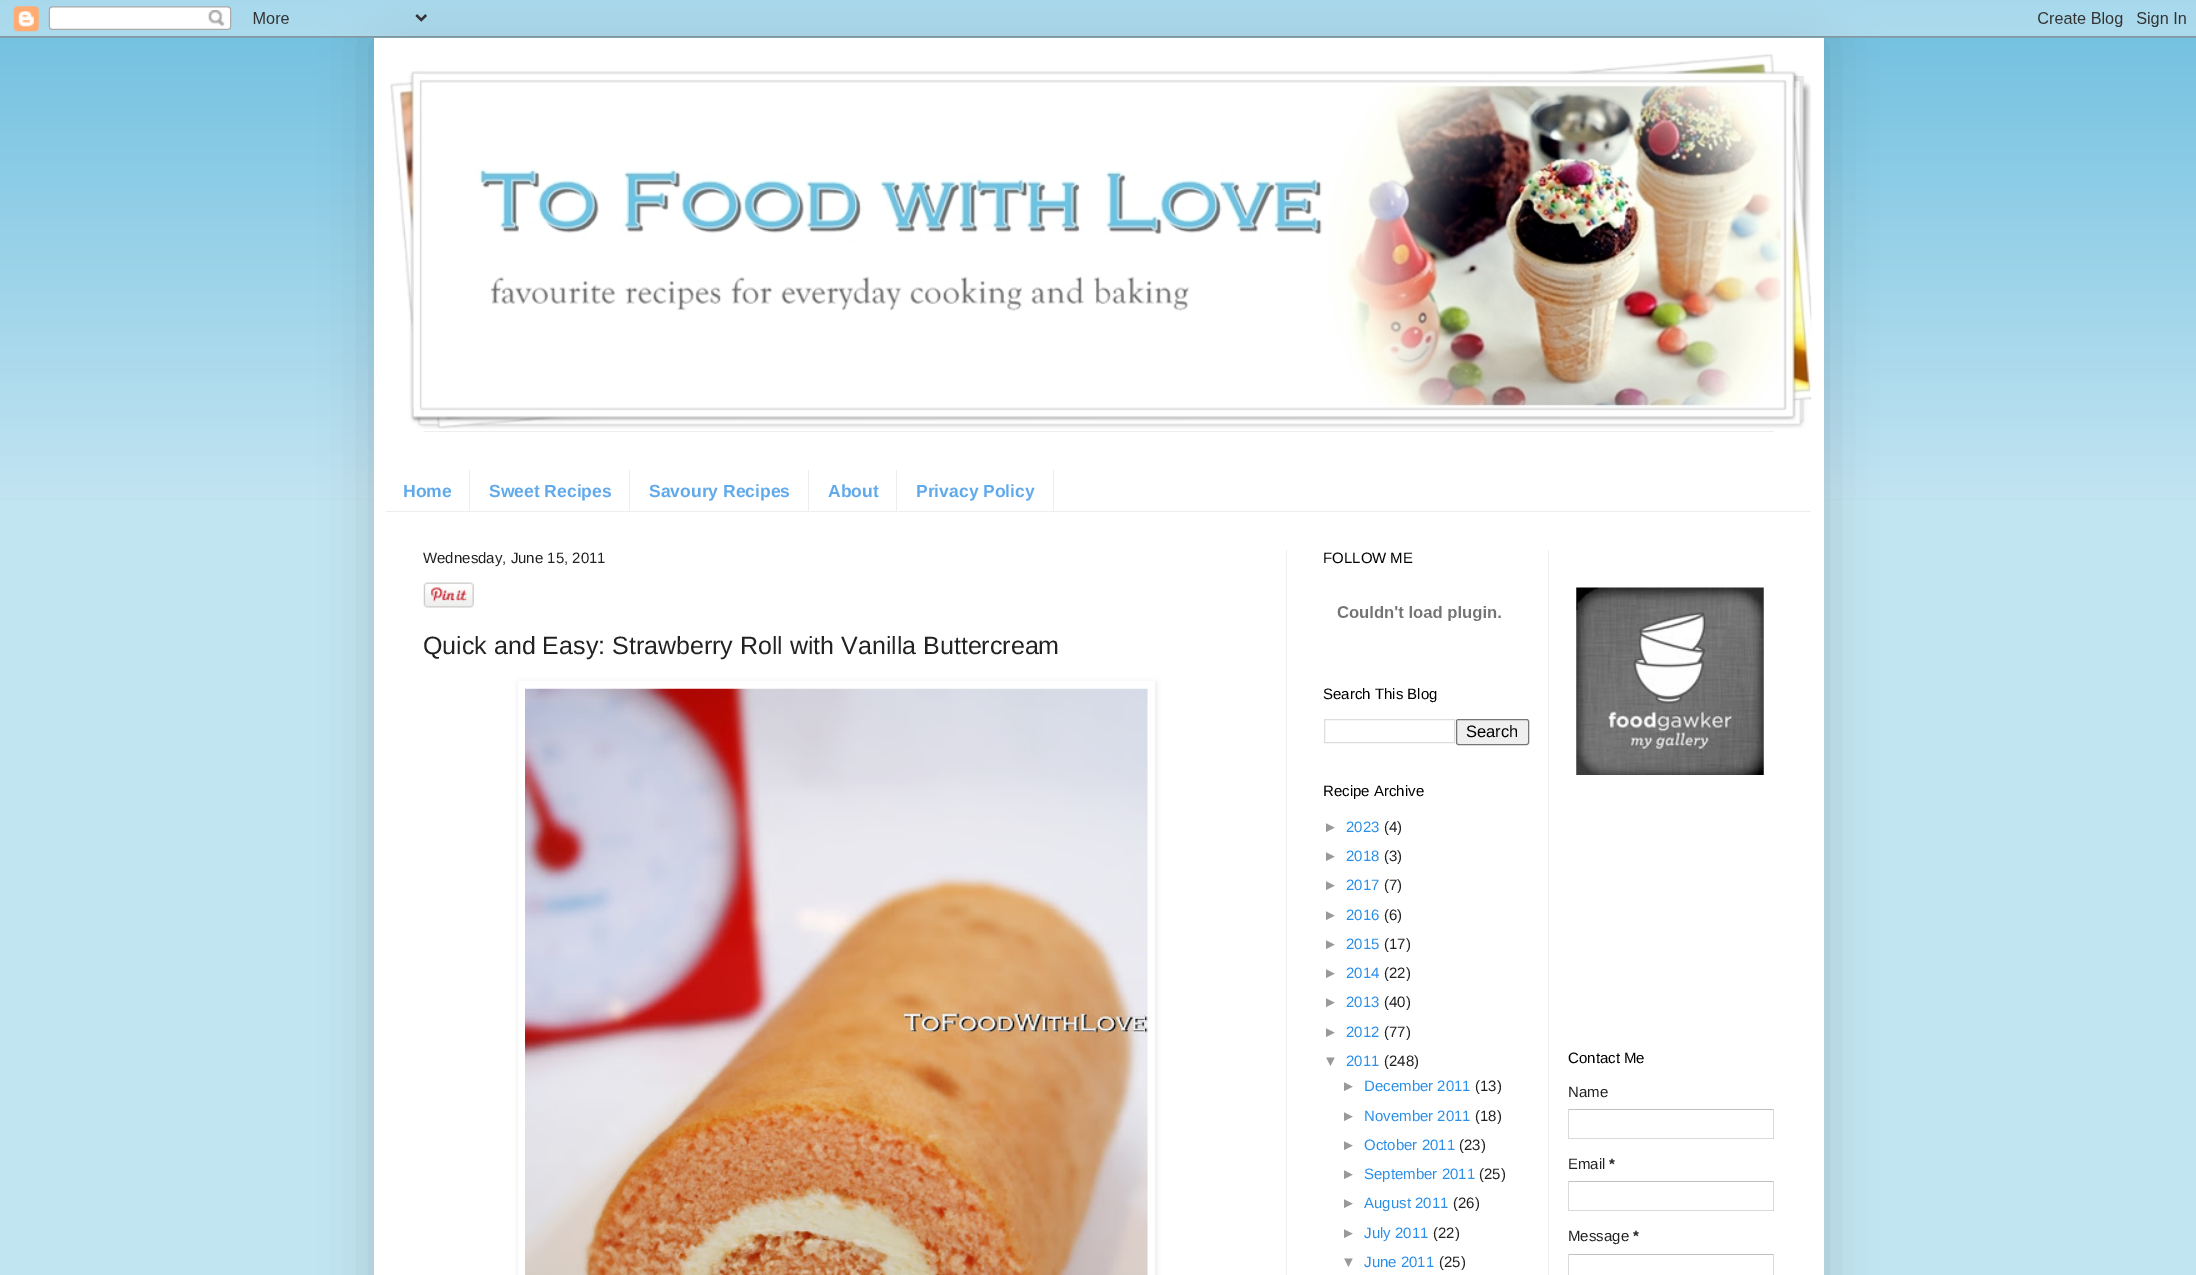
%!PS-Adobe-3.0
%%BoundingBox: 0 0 2196 1275
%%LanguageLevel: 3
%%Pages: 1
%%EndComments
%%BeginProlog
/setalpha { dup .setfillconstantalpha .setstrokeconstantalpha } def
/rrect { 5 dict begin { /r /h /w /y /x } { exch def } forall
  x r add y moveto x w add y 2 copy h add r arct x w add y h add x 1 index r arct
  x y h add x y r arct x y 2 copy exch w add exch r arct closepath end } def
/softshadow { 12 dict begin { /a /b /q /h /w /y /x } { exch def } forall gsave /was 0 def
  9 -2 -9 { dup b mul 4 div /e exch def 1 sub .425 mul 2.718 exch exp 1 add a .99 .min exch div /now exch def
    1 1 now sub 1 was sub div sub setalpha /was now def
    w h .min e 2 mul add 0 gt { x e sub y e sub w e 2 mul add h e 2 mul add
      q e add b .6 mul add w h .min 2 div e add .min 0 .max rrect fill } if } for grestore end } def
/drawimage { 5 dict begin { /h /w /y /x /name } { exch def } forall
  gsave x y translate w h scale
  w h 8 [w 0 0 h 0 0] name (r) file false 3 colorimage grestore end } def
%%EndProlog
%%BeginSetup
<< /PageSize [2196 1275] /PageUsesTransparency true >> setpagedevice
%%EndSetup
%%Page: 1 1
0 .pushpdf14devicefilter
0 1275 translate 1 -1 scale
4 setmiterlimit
0.757 0.898 0.945 setrgbcolor
0 0 2196 1275 rectfill
0.4 0.733 0.867 setrgbcolor
0 0 2196 500 rectfill
(images/1.raw) 0 0 2196 500 drawimage
0 setgray
374 38 1450 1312 0 25 0.15 softshadow
(images/2.raw) 0 0 2196 38 drawimage
1 setgray
374 38 1450 1237 rectfill
(images/3.raw) 390 54 1422 375 drawimage
0.933 setgray
424 431 1350 1 rectfill
386 511 1425 1 rectfill
469 470 1 41 rectfill
629 470 1 41 rectfill
808 470 1 41 rectfill
896 470 1 41 rectfill
1053 470 1 41 rectfill
1286 550 1 725 rectfill
(images/4.raw) 423 582 51 26 drawimage
0 setgray
519 683 637 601 0 3 0.1 softshadow
1 setgray
518 681 637 594 rectfill
(images/5.raw) 525 688 623 587 drawimage
(images/6.raw) 1337 606 164 15 drawimage
0.867 setgray
1324.5 719.5 130 23 rectstroke
0.937 setgray
1456.5 719.5 72 25 2 rrect gsave fill grestore
0.463 setgray
stroke
0.933 setgray
1548 550 1 725 rectfill
(images/7.raw) 1576 587 188 188 drawimage
0.753 setgray
1568 1109 206 1 rectfill
0.851 setgray
1773 1109 1 30 rectfill
1568 1138 206 1 rectfill
1568 1109 1 30 rectfill
0.753 setgray
1568 1181 206 1 rectfill
0.851 setgray
1773 1181 1 30 rectfill
1568 1210 206 1 rectfill
1568 1181 1 30 rectfill
0.753 setgray
1568 1254 206 1 rectfill
0.851 setgray
1773 1254 1 21 rectfill
1568 1254 1 21 rectfill
/LiberationSans-Bold [17.5 0 0 -17.5 0 0] selectfont
0.376 0.663 0.922 setrgbcolor
403 497 moveto (Home) show
489 497 moveto (Sweet Recipes) show
649 497 moveto (Savoury Recipes) show
828 497 moveto (About) show
916 497 moveto (Privacy Policy) show
/LiberationSans-Regular [15 0 0 -15 0 0] selectfont
0.133 setgray
423 563 moveto (Wednesday, June 15, 2011) show
/LiberationSans-Regular [25 0 0 -25 0 0] selectfont
423 654 moveto (Quick and Easy: Strawberry Roll with Vanilla Buttercream) show
/LiberationSans-Regular [15 0 0 -15 0 0] selectfont
0 setgray
1323 563 moveto (FOLLOW ME) show
1323 699 moveto (Search This Blog) show
/LiberationSans-Regular [16.5 0 0 -16.5 0 0] selectfont
1466 737 moveto (Search) show
/LiberationSans-Regular [15 0 0 -15 0 0] selectfont
1323 796 moveto (Recipe Archive) show
0.6 setgray
1323 832 moveto (►) show
0.165 0.561 0.914 setrgbcolor
1346 832 moveto (2023) show
0.133 setgray
1384 832 moveto (\(4\)) show
0.6 setgray
1323 861 moveto (►) show
0.165 0.561 0.914 setrgbcolor
1346 861 moveto (2018) show
0.133 setgray
1384 861 moveto (\(3\)) show
0.6 setgray
1323 890 moveto (►) show
0.165 0.561 0.914 setrgbcolor
1346 890 moveto (2017) show
0.133 setgray
1384 890 moveto (\(7\)) show
0.6 setgray
1323 920 moveto (►) show
0.165 0.561 0.914 setrgbcolor
1346 920 moveto (2016) show
0.133 setgray
1384 920 moveto (\(6\)) show
0.6 setgray
1323 949 moveto (►) show
0.165 0.561 0.914 setrgbcolor
1346 949 moveto (2015) show
0.133 setgray
1384 949 moveto (\(17\)) show
0.6 setgray
1323 978 moveto (►) show
0.165 0.561 0.914 setrgbcolor
1346 978 moveto (2014) show
0.133 setgray
1384 978 moveto (\(22\)) show
0.6 setgray
1323 1007 moveto (►) show
0.165 0.561 0.914 setrgbcolor
1346 1007 moveto (2013) show
0.133 setgray
1384 1007 moveto (\(40\)) show
0.6 setgray
1323 1037 moveto (►) show
0.165 0.561 0.914 setrgbcolor
1346 1037 moveto (2012) show
0.133 setgray
1384 1037 moveto (\(77\)) show
0.6 setgray
1323 1066 moveto (▼) show
0.165 0.561 0.914 setrgbcolor
1346 1066 moveto (2011) show
0.133 setgray
1384 1066 moveto (\(248\)) show
0.6 setgray
1341 1091 moveto (►) show
0.165 0.561 0.914 setrgbcolor
1364 1091 moveto (December 2011) show
0.133 setgray
1475 1091 moveto (\(13\)) show
0.6 setgray
1341 1121 moveto (►) show
0.165 0.561 0.914 setrgbcolor
1364 1121 moveto (November 2011) show
0.133 setgray
1475 1121 moveto (\(18\)) show
0.6 setgray
1341 1150 moveto (►) show
0.165 0.561 0.914 setrgbcolor
1364 1150 moveto (October 2011) show
0.133 setgray
1459 1150 moveto (\(23\)) show
0.6 setgray
1341 1179 moveto (►) show
0.165 0.561 0.914 setrgbcolor
1364 1179 moveto (September 2011) show
0.133 setgray
1479 1179 moveto (\(25\)) show
0.6 setgray
1341 1208 moveto (►) show
0.165 0.561 0.914 setrgbcolor
1364 1208 moveto (August 2011) show
0.133 setgray
1453 1208 moveto (\(26\)) show
0.6 setgray
1341 1238 moveto (►) show
0.165 0.561 0.914 setrgbcolor
1364 1238 moveto (July 2011) show
0.133 setgray
1433 1238 moveto (\(22\)) show
0.6 setgray
1341 1267 moveto (▼) show
0.165 0.561 0.914 setrgbcolor
1364 1267 moveto (June 2011) show
0.133 setgray
1439 1267 moveto (\(25\)) show
0 setgray
1568 1063 moveto (Contact Me) show
0.133 setgray
1568 1097 moveto (Name) show
1568 1169 moveto (Email) show
/LiberationSans-Bold [15 0 0 -15 0 0] selectfont
1609 1169 moveto (*) show
/LiberationSans-Regular [15 0 0 -15 0 0] selectfont
1568 1241 moveto (Message) show
/LiberationSans-Bold [15 0 0 -15 0 0] selectfont
1633 1241 moveto (*) show
.poppdf14devicefilter showpage
%%EOF
